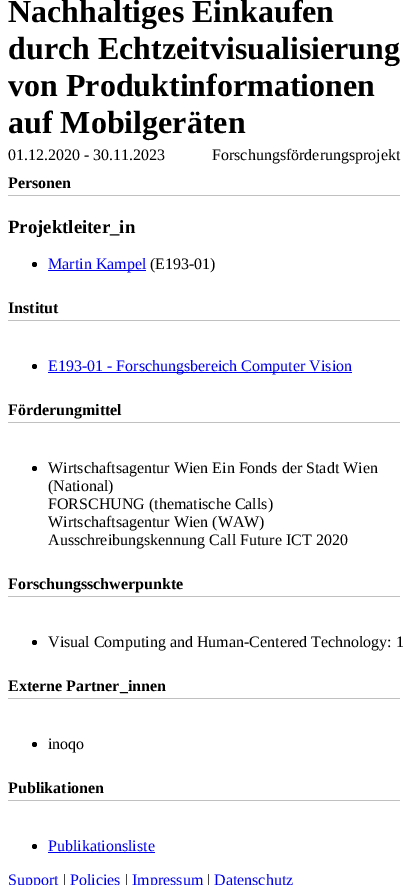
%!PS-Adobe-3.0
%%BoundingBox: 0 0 408 885
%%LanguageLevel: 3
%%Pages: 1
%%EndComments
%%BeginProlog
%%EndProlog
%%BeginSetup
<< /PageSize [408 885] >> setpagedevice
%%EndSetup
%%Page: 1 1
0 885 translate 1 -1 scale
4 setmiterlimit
1 setgray
0 0 408 885 rectfill
0.753 setgray
8 195 392 1 rectfill
0 setgray
newpath 34.5 264.5 2.5 0 360 arc closepath fill
0 0 0.933 setrgbcolor
48 270 98 1 rectfill
0.753 setgray
8 320 392 1 rectfill
0 setgray
newpath 34.5 366.5 2.5 0 360 arc closepath fill
0 0 0.933 setrgbcolor
48 372 304 1 rectfill
0.753 setgray
8 422 392 1 rectfill
0 setgray
newpath 34.5 468.5 2.5 0 360 arc closepath fill
0.753 setgray
8 596 392 1 rectfill
0 setgray
newpath 34.5 642.5 2.5 0 360 arc closepath fill
0.753 setgray
8 698 392 1 rectfill
0 setgray
newpath 34.5 744.5 2.5 0 360 arc closepath fill
0.753 setgray
8 800 392 1 rectfill
0 setgray
newpath 34.5 846.5 2.5 0 360 arc closepath fill
0 0 0.933 setrgbcolor
48 852 107 1 rectfill
/LiberationSerif-Bold [32 0 0 -32 0 0] selectfont
0 setgray
8 22 moveto (Nachhaltiges Einkaufen) show
8 59 moveto (durch Echtzeitvisualisierung) show
8 96 moveto (von Produktinformationen) show
8 133 moveto (auf Mobilgeräten) show
/LiberationSerif-Regular [16 0 0 -16 0 0] selectfont
8 160 moveto (01.12.2020 - 30.11.2023) show
212 160 moveto (Forschungsförderungsprojekt) show
/LiberationSerif-Bold [16 0 0 -16 0 0] selectfont
8 188 moveto (Personen) show
/LiberationSerif-Bold [18.75 0 0 -18.75 0 0] selectfont
8 233 moveto (Projektleiter_in) show
/LiberationSerif-Regular [16 0 0 -16 0 0] selectfont
0 0 0.933 setrgbcolor
48 269 moveto (Martin Kampel) show
0 setgray
150 269 moveto (\(E193-01\)) show
/LiberationSerif-Bold [16 0 0 -16 0 0] selectfont
8 313 moveto (Institut) show
/LiberationSerif-Regular [16 0 0 -16 0 0] selectfont
0 0 0.933 setrgbcolor
48 371 moveto (E193-01 - Forschungsbereich Computer Vision) show
/LiberationSerif-Bold [16 0 0 -16 0 0] selectfont
0 setgray
8 415 moveto (Förderungmittel) show
/LiberationSerif-Regular [16 0 0 -16 0 0] selectfont
48 473 moveto (Wirtschaftsagentur Wien Ein Fonds der Stadt Wien) show
48 491 moveto (\(National\)) show
48 509 moveto (FORSCHUNG \(thematische Calls\)) show
48 527 moveto (Wirtschaftsagentur Wien \(WAW\)) show
48 545 moveto (Ausschreibungskennung Call Future ICT 2020) show
/LiberationSerif-Bold [16 0 0 -16 0 0] selectfont
8 589 moveto (Forschungsschwerpunkte) show
/LiberationSerif-Regular [16 0 0 -16 0 0] selectfont
48 647 moveto (Visual Computing and Human-Centered Technology: 1) show
/LiberationSerif-Bold [16 0 0 -16 0 0] selectfont
8 691 moveto (Externe Partner_innen) show
/LiberationSerif-Regular [16 0 0 -16 0 0] selectfont
48 749 moveto (inoqo) show
/LiberationSerif-Bold [16 0 0 -16 0 0] selectfont
8 793 moveto (Publikationen) show
/LiberationSerif-Regular [16 0 0 -16 0 0] selectfont
0 0 0.933 setrgbcolor
48 851 moveto (Publikationsliste) show
8 885 moveto (Support) show
0 setgray
63 885 moveto (|) show
0 0 0.933 setrgbcolor
70 885 moveto (Policies) show
0 setgray
125 885 moveto (|) show
0 0 0.933 setrgbcolor
132 885 moveto (Impressum) show
0 setgray
207 885 moveto (|) show
0 0 0.933 setrgbcolor
214 885 moveto (Datenschutz) show
showpage
%%EOF
